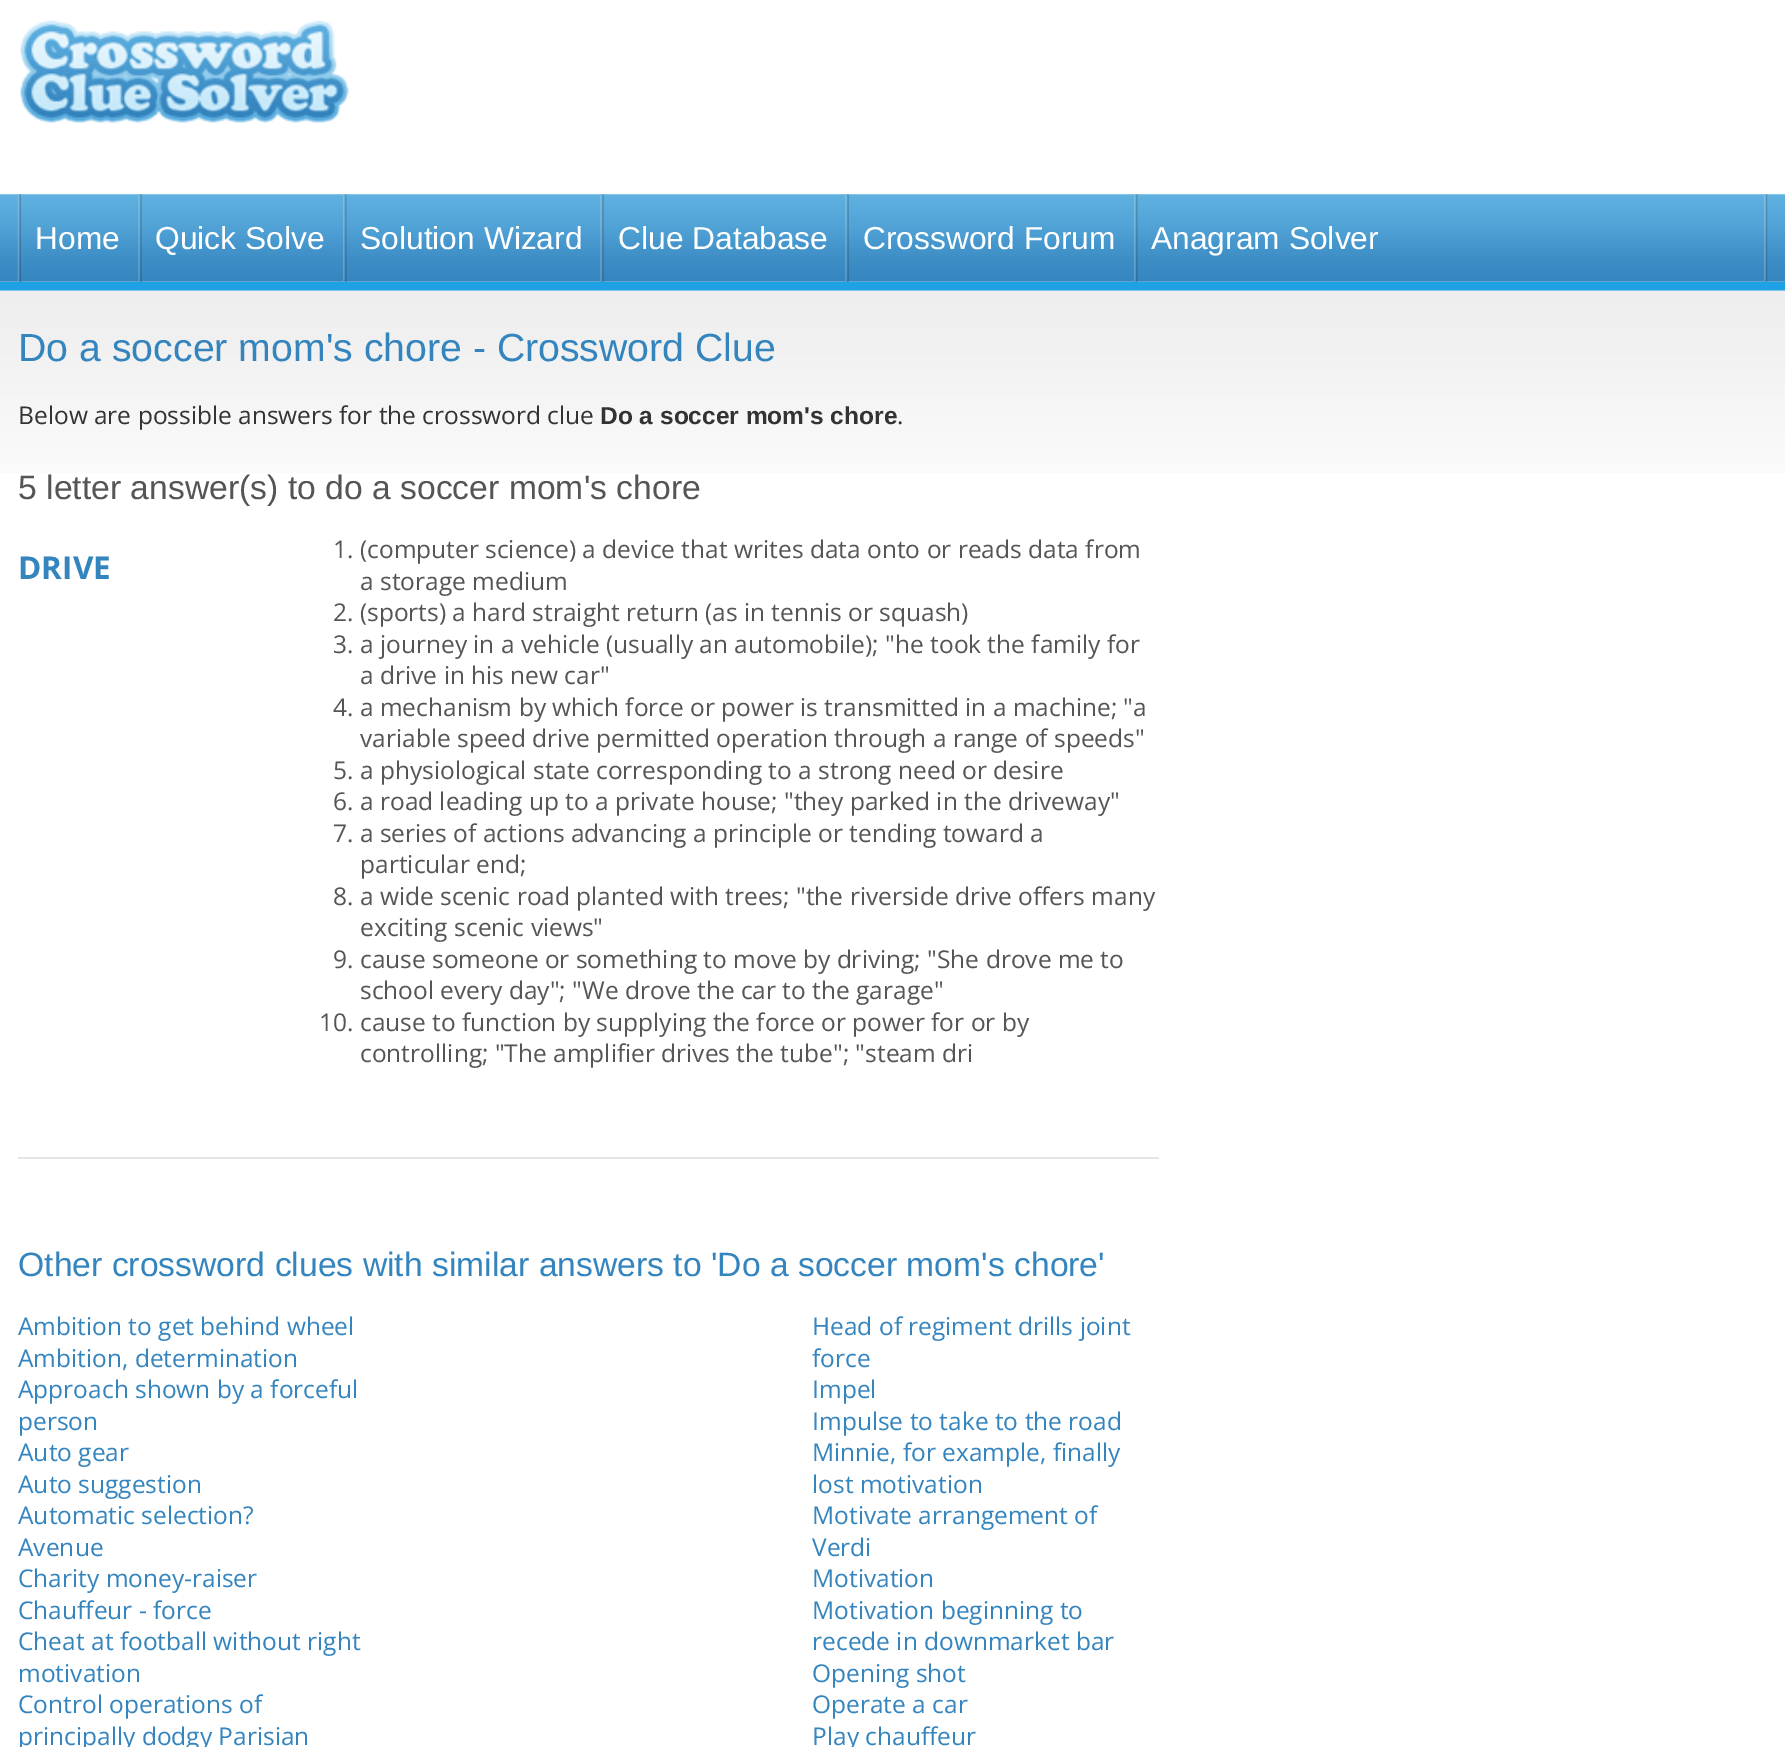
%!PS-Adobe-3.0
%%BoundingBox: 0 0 1785 1747
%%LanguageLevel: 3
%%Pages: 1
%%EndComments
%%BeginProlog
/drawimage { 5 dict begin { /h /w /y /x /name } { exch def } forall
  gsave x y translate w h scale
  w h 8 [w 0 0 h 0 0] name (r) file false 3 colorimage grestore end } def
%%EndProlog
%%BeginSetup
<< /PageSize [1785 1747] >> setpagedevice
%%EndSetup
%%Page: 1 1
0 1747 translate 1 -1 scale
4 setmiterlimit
1 setgray
0 0 1785 1747 rectfill
(images/1.raw) 19 20 330 103 drawimage
(images/2.raw) 0 194 1785 88 drawimage
(images/3.raw) 1764 194 4 88 drawimage
(images/4.raw) 17 194 4 88 drawimage
(images/5.raw) 138 194 4 88 drawimage
(images/6.raw) 343 194 4 88 drawimage
(images/5.raw) 600 194 4 88 drawimage
(images/5.raw) 845 194 4 88 drawimage
(images/6.raw) 1134 194 4 88 drawimage
gsave newpath 0 282 moveto 1785 282 lineto 1785 291 lineto 0 291 lineto closepath clip newpath
<< /ShadingType 2 /ColorSpace /DeviceRGB /Coords [892 282 893 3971] /Extend [true true] /Function << /FunctionType 2 /Domain [0 1] /C0 [0.122 0.635 0.898] /C1 [0.098 0.522 0.737] /N 1 >> >> shfill grestore
(images/7.raw) 0 290 1785 183 drawimage
0.898 setgray
18 1157 1141 2 rectfill
/LiberationSans-Regular [31.75 0 0 -31.75 0 0] selectfont
1 setgray
35 249 moveto (Home) show
155 249 moveto (Quick Solve) show
360 249 moveto (Solution Wizard) show
618 249 moveto (Clue Database) show
863 249 moveto (Crossword Forum) show
1151 249 moveto (Anagram Solver) show
/LiberationSans-Regular [39.25 0 0 -39.25 0 0] selectfont
0.204 0.518 0.745 setrgbcolor
18 361 moveto (Do a soccer mom's chore - Crossword Clue) show
/OpenSans-Regular [24.5 0 0 -24.5 0 0] selectfont
0.2 setgray
18 424 moveto (Below are possible answers for the crossword clue) show
/LiberationSans-Bold [24.5 0 0 -24.5 0 0] selectfont
600 424 moveto (Do a soccer mom's chore) show
/OpenSans-Regular [24.5 0 0 -24.5 0 0] selectfont
897 424 moveto (.) show
/LiberationSans-Regular [33.7 0 0 -33.7 0 0] selectfont
0.333 setgray
18 499 moveto (5 letter answer\(s\) to do a soccer mom's chore) show
/OpenSans-Bold [31.5 0 0 -31.5 0 0] selectfont
0.204 0.518 0.745 setrgbcolor
18 579 moveto (DRIVE) show
/OpenSans-Regular [24.5 0 0 -24.5 0 0] selectfont
0.333 setgray
333 558 moveto (1. \(computer science\) a device that writes data onto or reads data from) show
360 590 moveto (a storage medium) show
333 621 moveto (2. \(sports\) a hard straight return \(as in tennis or squash\)) show
333 653 moveto (3. a journey in a vehicle \(usually an automobile\); "he took the family for) show
360 684 moveto (a drive in his new car") show
333 716 moveto (4. a mechanism by which force or power is transmitted in a machine; "a) show
360 747 moveto (variable speed drive permitted operation through a range of speeds") show
333 779 moveto (5. a physiological state corresponding to a strong need or desire) show
333 810 moveto (6. a road leading up to a private house; "they parked in the driveway") show
333 842 moveto (7. a series of actions advancing a principle or tending toward a) show
360 873 moveto (particular end;) show
333 905 moveto (8. a wide scenic road planted with trees; "the riverside drive offers many) show
360 936 moveto (exciting scenic views") show
333 968 moveto (9. cause someone or something to move by driving; "She drove me to) show
360 999 moveto (school every day"; "We drove the car to the garage") show
319 1031 moveto (10. cause to function by supplying the force or power for or by) show
360 1062 moveto (controlling; "The amplifier drives the tube"; "steam dri) show
/LiberationSans-Regular [33.7 0 0 -33.7 0 0] selectfont
0.204 0.518 0.745 setrgbcolor
18 1276 moveto (Other crossword clues with similar answers to 'Do a soccer mom's chore') show
/OpenSans-Regular [24.5 0 0 -24.5 0 0] selectfont
18 1335 moveto (Ambition to get behind wheel) show
18 1367 moveto (Ambition, determination) show
18 1398 moveto (Approach shown by a forceful) show
18 1430 moveto (person) show
18 1461 moveto (Auto gear) show
18 1493 moveto (Auto suggestion) show
18 1524 moveto (Automatic selection?) show
18 1556 moveto (Avenue) show
18 1587 moveto (Charity money-raiser) show
18 1619 moveto (Chauffeur - force) show
18 1650 moveto (Cheat at football without right) show
18 1682 moveto (motivation) show
18 1713 moveto (Control operations of) show
18 1745 moveto (principally dodgy Parisian) show
812 1335 moveto (Head of regiment drills joint) show
812 1367 moveto (force) show
812 1398 moveto (Impel) show
812 1430 moveto (Impulse to take to the road) show
812 1461 moveto (Minnie, for example, finally) show
812 1493 moveto (lost motivation) show
812 1524 moveto (Motivate arrangement of) show
812 1556 moveto (Verdi) show
812 1587 moveto (Motivation) show
812 1619 moveto (Motivation beginning to) show
812 1650 moveto (recede in downmarket bar) show
812 1682 moveto (Opening shot) show
812 1713 moveto (Operate a car) show
812 1745 moveto (Play chauffeur) show
showpage
%%EOF
